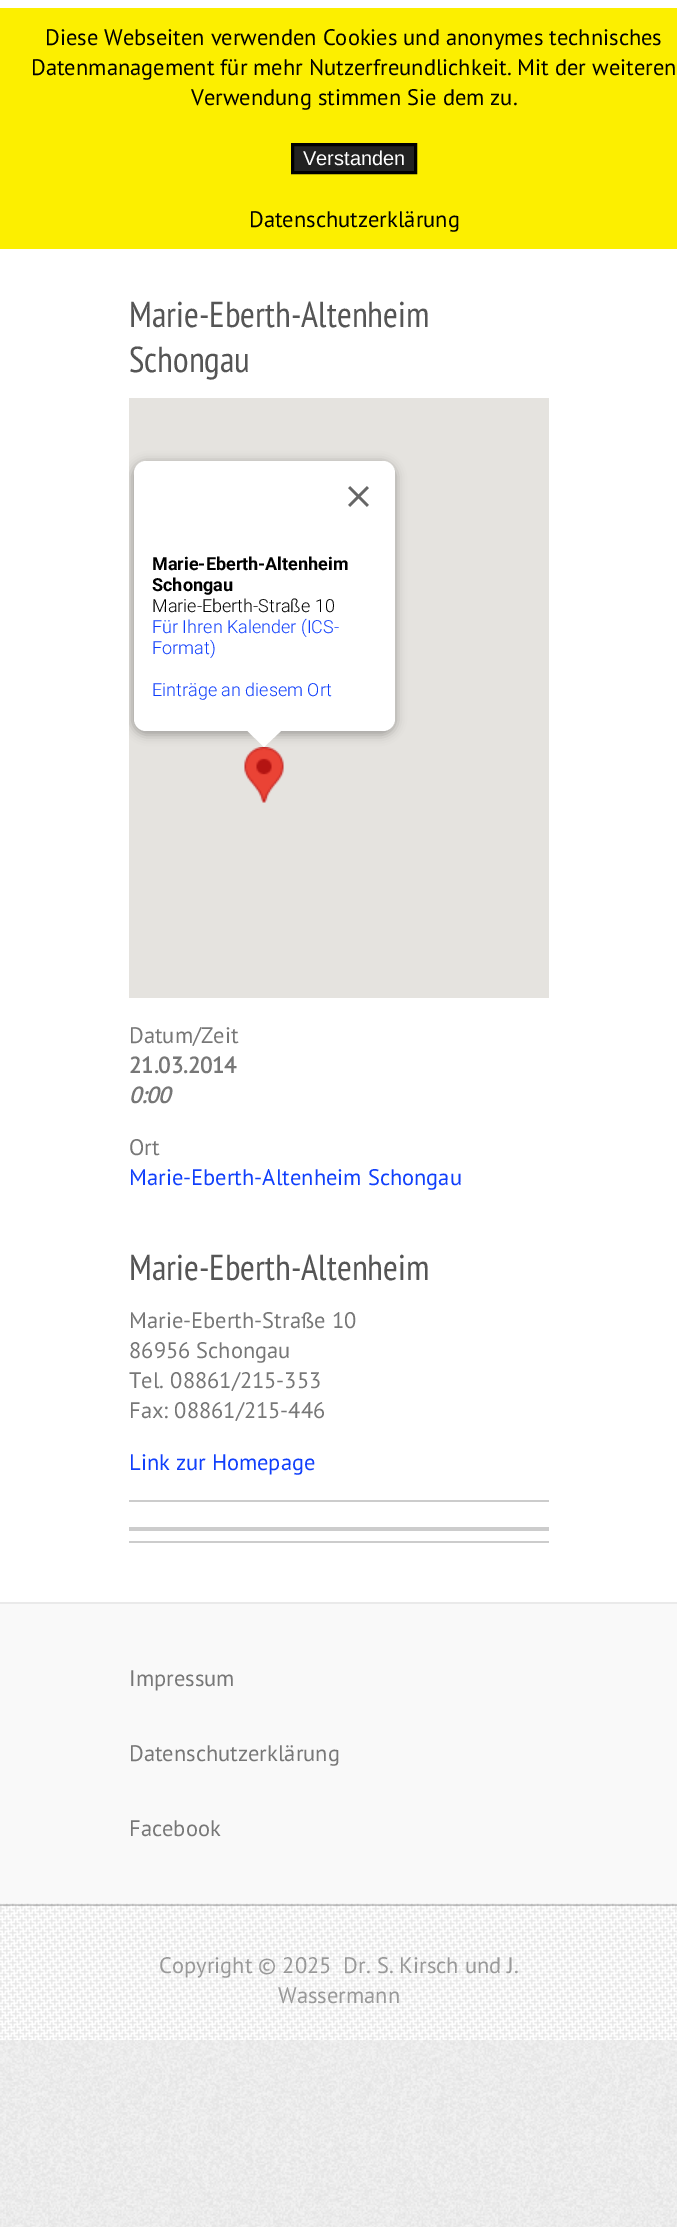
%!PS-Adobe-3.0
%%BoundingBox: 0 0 677 2227
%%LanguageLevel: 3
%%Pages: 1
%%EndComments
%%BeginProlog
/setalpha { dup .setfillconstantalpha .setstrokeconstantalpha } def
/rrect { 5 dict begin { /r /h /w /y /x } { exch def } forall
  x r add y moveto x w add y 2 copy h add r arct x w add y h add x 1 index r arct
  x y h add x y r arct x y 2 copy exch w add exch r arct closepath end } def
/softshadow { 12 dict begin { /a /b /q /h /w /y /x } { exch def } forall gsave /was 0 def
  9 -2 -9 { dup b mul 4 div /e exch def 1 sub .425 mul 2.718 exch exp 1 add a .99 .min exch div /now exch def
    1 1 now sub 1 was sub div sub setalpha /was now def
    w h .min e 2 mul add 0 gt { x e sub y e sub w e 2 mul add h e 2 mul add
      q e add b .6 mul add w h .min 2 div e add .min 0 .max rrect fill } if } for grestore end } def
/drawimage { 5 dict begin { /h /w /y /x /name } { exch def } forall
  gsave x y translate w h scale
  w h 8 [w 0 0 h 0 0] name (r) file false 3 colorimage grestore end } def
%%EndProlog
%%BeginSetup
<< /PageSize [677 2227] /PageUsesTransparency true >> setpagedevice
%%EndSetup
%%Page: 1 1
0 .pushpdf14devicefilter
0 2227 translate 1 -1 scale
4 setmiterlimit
1 setgray
0 0 677 2227 rectfill
(images/1.raw) 0 2040 677 187 drawimage
0.988 0.937 0 setrgbcolor
0 8 677 241 rectfill
0.133 setgray
newpath 292.5 144.5 moveto 415.5 144.5 lineto 415.5 172.5 lineto 292.5 172.5 lineto closepath gsave fill grestore
0 setgray
3 setlinewidth
stroke
0.898 0.89 0.875 setrgbcolor
129 398 420 600 rectfill
(images/3.raw) 244 747 40 56 drawimage
gsave
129 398 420 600 rectclip
0 setgray
132 462 264 273 14 5 0.3 softshadow
grestore
1 setgray
134 461 261 270 12 rrect fill
(images/2.raw) 348 486 21 21 drawimage
newpath 246 729 moveto 246 729.5 lineto 264 747 lineto 283 729 lineto closepath fill
0.8 setgray
129 1500 420 2 rectfill
129 1527 420 4 rectfill
129 1541 420 2 rectfill
0.976 setgray
0 1604 677 300 rectfill
0.918 setgray
0 1602 677 2 rectfill
(images/4.raw) 0 1903 677 137 drawimage
0.2 setalpha
0 setgray
0 1904 677 2 rectfill
/PTSans-Regular [22.5 0 0 -22.5 0 0] selectfont
1 setalpha
45 45 moveto (Diese Webseiten verwenden Cookies und anonymes technisches) show
31 75 moveto (Datenmanagement für mehr Nutzerfreundlichkeit. Mit der weiteren) show
191 105 moveto (Verwendung stimmen Sie dem zu.) show
/LiberationSans-Regular [20 0 0 -20 0 0] selectfont
1 setgray
303 165 moveto (Verstanden) show
/PTSans-Regular [22.5 0 0 -22.5 0 0] selectfont
0 setgray
249 227 moveto (Datenschutzerklärung) show
/PTSansNarrow-Regular [36 0 0 -36 0 0] selectfont
0.333 setgray
129 327 moveto (Marie-Eberth-Altenheim) show
129 372 moveto (Schongau) show
/Roboto-Bold [18 0 0 -18 0 0] selectfont
0 setgray
152 570 moveto (Marie-Eberth-Altenheim) show
152 591 moveto (Schongau) show
/Roboto-Light [18 0 0 -18 0 0] selectfont
152 612 moveto (Marie-Eberth-Straße 10) show
0.063 0.247 0.984 setrgbcolor
152 633 moveto (Für Ihren Kalender \(ICS-) show
152 654 moveto (Format\)) show
152 696 moveto (Einträge an diesem Ort) show
/PTSans-Regular [22.5 0 0 -22.5 0 0] selectfont
0.467 setgray
129 1043 moveto (Datum/Zeit) show
/PTSans-Bold [22.5 0 0 -22.5 0 0] selectfont
129 1073 moveto (21.03.2014) show
/PTSans-BoldItalic [22.5 0 0 -22.5 0 0] selectfont
129 1103 moveto (0:00) show
/PTSans-Regular [22.5 0 0 -22.5 0 0] selectfont
129 1155 moveto (Ort) show
0.063 0.247 0.984 setrgbcolor
129 1185 moveto (Marie-Eberth-Altenheim Schongau) show
/PTSansNarrow-Regular [36 0 0 -36 0 0] selectfont
0.333 setgray
129 1280 moveto (Marie-Eberth-Altenheim) show
/PTSans-Regular [22.5 0 0 -22.5 0 0] selectfont
0.467 setgray
129 1328 moveto (Marie-Eberth-Straße 10) show
129 1358 moveto (86956 Schongau) show
129 1388 moveto (Tel. 08861/215-353) show
129 1418 moveto (Fax: 08861/215-446) show
0.063 0.247 0.984 setrgbcolor
129 1470 moveto (Link zur Homepage) show
0.467 setgray
129 1686 moveto (Impressum) show
129 1761 moveto (Datenschutzerklärung) show
129 1836 moveto (Facebook) show
0.6 setgray
159 1973 moveto (Copyright © 2025  Dr. S. Kirsch und J.) show
278 2003 moveto (Wassermann) show
.poppdf14devicefilter showpage
%%EOF
